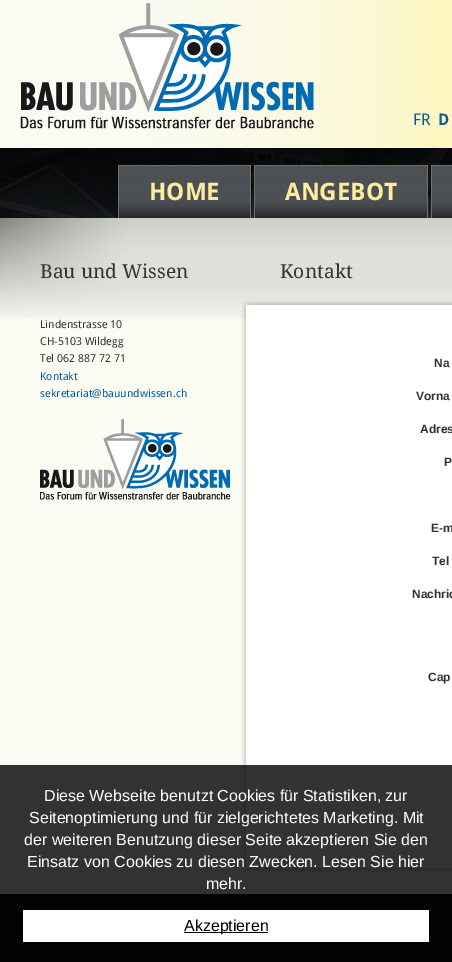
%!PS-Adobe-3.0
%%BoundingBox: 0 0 452 962
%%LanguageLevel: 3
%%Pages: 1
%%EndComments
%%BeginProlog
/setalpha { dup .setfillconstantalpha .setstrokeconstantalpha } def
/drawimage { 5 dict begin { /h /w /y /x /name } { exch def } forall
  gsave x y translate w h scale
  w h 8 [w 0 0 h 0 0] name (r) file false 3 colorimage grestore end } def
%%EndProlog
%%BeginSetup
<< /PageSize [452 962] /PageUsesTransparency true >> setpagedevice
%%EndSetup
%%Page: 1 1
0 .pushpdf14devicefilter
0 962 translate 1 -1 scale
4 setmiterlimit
1 setgray
0 0 452 962 rectfill
(images/1.raw) 0 148 452 70 drawimage
(images/2.raw) 0 0 452 148 drawimage
(images/3.raw) 20 3 294 126 drawimage
(images/4.raw) 0 148 452 70 drawimage
(images/5.raw) 119 166 131 52 drawimage
0.439 0.443 0.404 setrgbcolor
118 165 133 1 rectfill
250 165 1 53 rectfill
118 165 1 53 rectfill
(images/6.raw) 255 166 172 52 drawimage
254 165 174 1 rectfill
427 165 1 53 rectfill
254 165 1 53 rectfill
(images/7.raw) 432 166 20 52 drawimage
431 165 21 1 rectfill
431 165 1 53 rectfill
0.98 0.984 0.953 setrgbcolor
0 318 452 576 rectfill
(images/8.raw) 0 218 452 100 drawimage
(images/9.raw) 40 419 191 81 drawimage
(images/10.raw) 241 300 211 19 drawimage
(images/11.raw) 241 319 211 535 drawimage
(images/12.raw) 241 854 211 19 drawimage
0.012 0.051 0.063 setrgbcolor
0 894 452 68 rectfill
0.8 setalpha
0 setgray
0 765 452 197 rectfill
1 setalpha
1 setgray
23 910 406 32 rectfill
0 setgray
184 932 84 1 rectfill
/DroidSans-Regular [16 0 0 -16 0 0] selectfont
0.016 0.361 0.596 setrgbcolor
413 125 moveto (FR) show
/DroidSans-Bold [16 0 0 -16 0 0] selectfont
438 125 moveto (D) show
/DroidSans-Bold [24 0 0 -24 0 0] selectfont
1 0.925 0.62 setrgbcolor
149 200 moveto (HOME) show
285 200 moveto (ANGEBOT) show
/DroidSerif-Regular [19.25 0 0 -19.25 0 0] selectfont
0.2 setgray
40 278 moveto (Bau und Wissen) show
/DroidSans-Regular [10.9 0 0 -10.9 0 0] selectfont
40 328 moveto (Lindenstrasse 10) show
40 345 moveto (CH-5103 Wildegg) show
40 362 moveto (Tel 062 887 72 71) show
0.016 0.361 0.596 setrgbcolor
40 380 moveto (Kontakt) show
40 397 moveto (sekretariat@bauundwissen.ch) show
/DroidSerif-Regular [19.25 0 0 -19.25 0 0] selectfont
0.2 setgray
280 278 moveto (Kontakt) show
/LiberationSans-Bold [12 0 0 -12 0 0] selectfont
434 367 moveto (Na) show
416 400 moveto (Vorna) show
420 433 moveto (Adres) show
444 466 moveto (P) show
431 532 moveto (E-m) show
432 565 moveto (Tel) show
412 598 moveto (Nachric) show
428 681 moveto (Cap) show
/LiberationSans-Regular [16 0 0 -16 0 0] selectfont
1 setgray
44 801 moveto (Diese Webseite benutzt Cookies für Statistiken, zur) show
29 823 moveto (Seitenoptimierung und für zielgerichtetes Marketing. Mit) show
24 845 moveto (der weiteren Benutzung dieser Seite akzeptieren Sie den) show
27 867 moveto (Einsatz von Cookies zu diesen Zwecken. Lesen Sie hier) show
206 889 moveto (mehr.) show
0 setgray
184 931 moveto (Akzeptieren) show
.poppdf14devicefilter showpage
%%EOF
